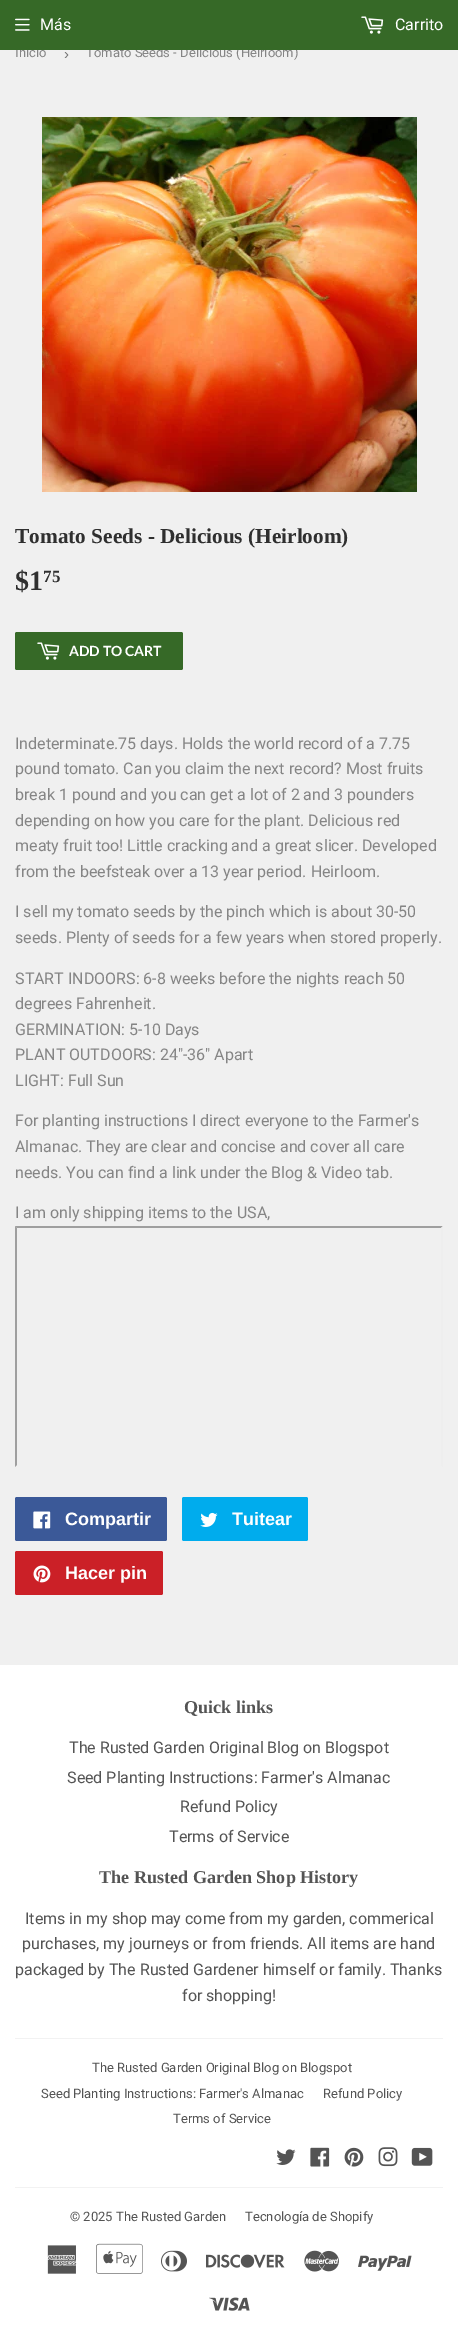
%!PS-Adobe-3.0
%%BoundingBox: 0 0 458 2340
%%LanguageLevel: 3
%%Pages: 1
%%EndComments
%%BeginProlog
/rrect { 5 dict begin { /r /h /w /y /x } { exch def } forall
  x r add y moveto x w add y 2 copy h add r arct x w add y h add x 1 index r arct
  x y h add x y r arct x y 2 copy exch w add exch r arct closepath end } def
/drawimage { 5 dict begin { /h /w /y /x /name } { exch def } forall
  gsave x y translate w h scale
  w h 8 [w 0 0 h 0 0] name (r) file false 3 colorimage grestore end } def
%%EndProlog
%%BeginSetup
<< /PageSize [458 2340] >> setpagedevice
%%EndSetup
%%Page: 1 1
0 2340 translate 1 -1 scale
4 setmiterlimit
0.941 setgray
0 0 458 2340 rectfill
(images/3.raw) 42 117 375 375 drawimage
0.212 0.412 0.153 setrgbcolor
15 632 168 38 2 rrect fill
(images/2.raw) 37 642 23 18 drawimage
0.624 setgray
newpath 15 1226 moveto 443 1226 lineto 441 1228 lineto 17 1228 lineto closepath fill
0.933 setgray
newpath 443 1226 moveto 443 1467 lineto 441 1465 lineto 441 1228 lineto closepath fill
0.624 setgray
newpath 15 1467 moveto 15 1226 lineto 17 1228 lineto 17 1465 lineto closepath fill
0.231 0.349 0.596 setrgbcolor
15 1497 152 44 2 rrect fill
(images/4.raw) 33 1511 18 18 drawimage
0 0.675 0.929 setrgbcolor
182 1497 126 44 2 rrect fill
(images/5.raw) 200 1512 18 15 drawimage
0.796 0.125 0.153 setrgbcolor
15 1551 148 44 2 rrect fill
(images/6.raw) 33 1565 18 18 drawimage
1 setgray
0 1665 458 675 rectfill
0.949 setgray
15 2038 428 1 rectfill
(images/7.raw) 276 2149 20 16 drawimage
(images/8.raw) 310 2147 20 20 drawimage
(images/9.raw) 344 2147 20 20 drawimage
(images/10.raw) 378 2147 20 20 drawimage
(images/11.raw) 411 2147 22 19 drawimage
15 2187 428 1 rectfill
(images/12.raw) 47 2245 30 29 drawimage
(images/13.raw) 96 2243 47 31 drawimage
(images/14.raw) 161 2250 26 22 drawimage
(images/15.raw) 206 2254 79 14 drawimage
(images/16.raw) 304 2250 35 22 drawimage
(images/17.raw) 358 2255 54 16 drawimage
(images/18.raw) 209 2297 41 14 drawimage
/Roboto-Regular [13 0 0 -13 0 0] selectfont
0.522 setgray
15 57 moveto (Inicio) show
/LiberationSans-Regular [15 0 0 -15 0 0] selectfont
0.463 setgray
64 59 moveto (›) show
/Roboto-Regular [13 0 0 -13 0 0] selectfont
0.522 setgray
86 57 moveto (Tomato Seeds - Delicious \(Heirloom\)) show
0.212 0.412 0.153 setrgbcolor
0 0 458 50 rectfill
(images/2.raw) 361 16 23 18 drawimage
/Roboto-Regular [16 0 0 -16 0 0] selectfont
1 setgray
395 30 moveto (Carrito) show
40 30 moveto (Más) show
(images/1.raw) 15 18 15 13 drawimage
/LiberationSerif-Bold [21.3 0 0 -21.3 0 0] selectfont
0.184 setgray
15 543 moveto (Tomato Seeds - Delicious \(Heirloom\)) show
/LiberationSerif-Bold [28 0 0 -28 0 0] selectfont
15 590 moveto ($1) show
/LiberationSerif-Bold [17 0 0 -17 0 0] selectfont
43 582 moveto (75) show
/Lato-Bold [14 0 0 -14 0 0] selectfont
1 setgray
69 656 moveto (ADD TO CART) show
/Roboto-Regular [16 0 0 -16 0 0] selectfont
0.522 setgray
15 749 moveto (Indeterminate.75 days. Holds the world record of a 7.75) show
15 774 moveto (pound tomato. Can you claim the next record? Most fruits) show
15 800 moveto (break 1 pound and you can get a lot of 2 and 3 pounders) show
15 826 moveto (depending on how you care for the plant. Delicious red) show
15 851 moveto (meaty fruit too! Little cracking and a great slicer. Developed) show
15 877 moveto (from the beefsteak over a 13 year period. Heirloom.) show
15 917 moveto (I sell my tomato seeds by the pinch which is about 30-50) show
15 943 moveto (seeds. Plenty of seeds for a few years when stored properly.) show
15 984 moveto (START INDOORS: 6-8 weeks before the nights reach 50) show
15 1009 moveto (degrees Fahrenheit.) show
15 1035 moveto (GERMINATION: 5-10 Days) show
15 1060 moveto (PLANT OUTDOORS: 24"-36" Apart) show
15 1086 moveto (LIGHT: Full Sun) show
15 1126 moveto (For planting instructions I direct everyone to the Farmer's) show
15 1152 moveto (Almanac. They are clear and concise and cover all care) show
15 1178 moveto (needs. You can find a link under the Blog & Video tab.) show
15 1218 moveto (I am only shipping items to the USA,) show
/LiberationSans-Bold [18 0 0 -18 0 0] selectfont
1 setgray
65 1525 moveto (Compartir) show
232 1525 moveto (Tuitear) show
65 1579 moveto (Hacer pin) show
/LiberationSerif-Bold [18.1 0 0 -18.1 0 0] selectfont
0.329 setgray
184 1713 moveto (Quick links) show
/Roboto-Regular [16 0 0 -16 0 0] selectfont
69 1753 moveto (The Rusted Garden Original Blog on Blogspot) show
67 1783 moveto (Seed Planting Instructions: Farmer's Almanac) show
180 1812 moveto (Refund Policy) show
169 1842 moveto (Terms of Service) show
/LiberationSerif-Bold [18.1 0 0 -18.1 0 0] selectfont
99 1883 moveto (The Rusted Garden Shop History) show
/Roboto-Regular [16 0 0 -16 0 0] selectfont
25 1924 moveto (Items in my shop may come from my garden, commerical) show
22 1949 moveto (purchases, my journeys or from friends. All items are hand) show
15 1975 moveto (packaged by The Rusted Gardener himself or family. Thanks) show
182 2001 moveto (for shopping!) show
/Roboto-Regular [13 0 0 -13 0 0] selectfont
92 2072 moveto (The Rusted Garden Original Blog on Blogspot) show
41 2098 moveto (Seed Planting Instructions: Farmer's Almanac) show
323 2098 moveto (Refund Policy) show
173 2123 moveto (Terms of Service) show
70 2221 moveto (© 2025 The Rusted Garden) show
245 2221 moveto (Tecnología de Shopify) show
showpage
%%EOF
